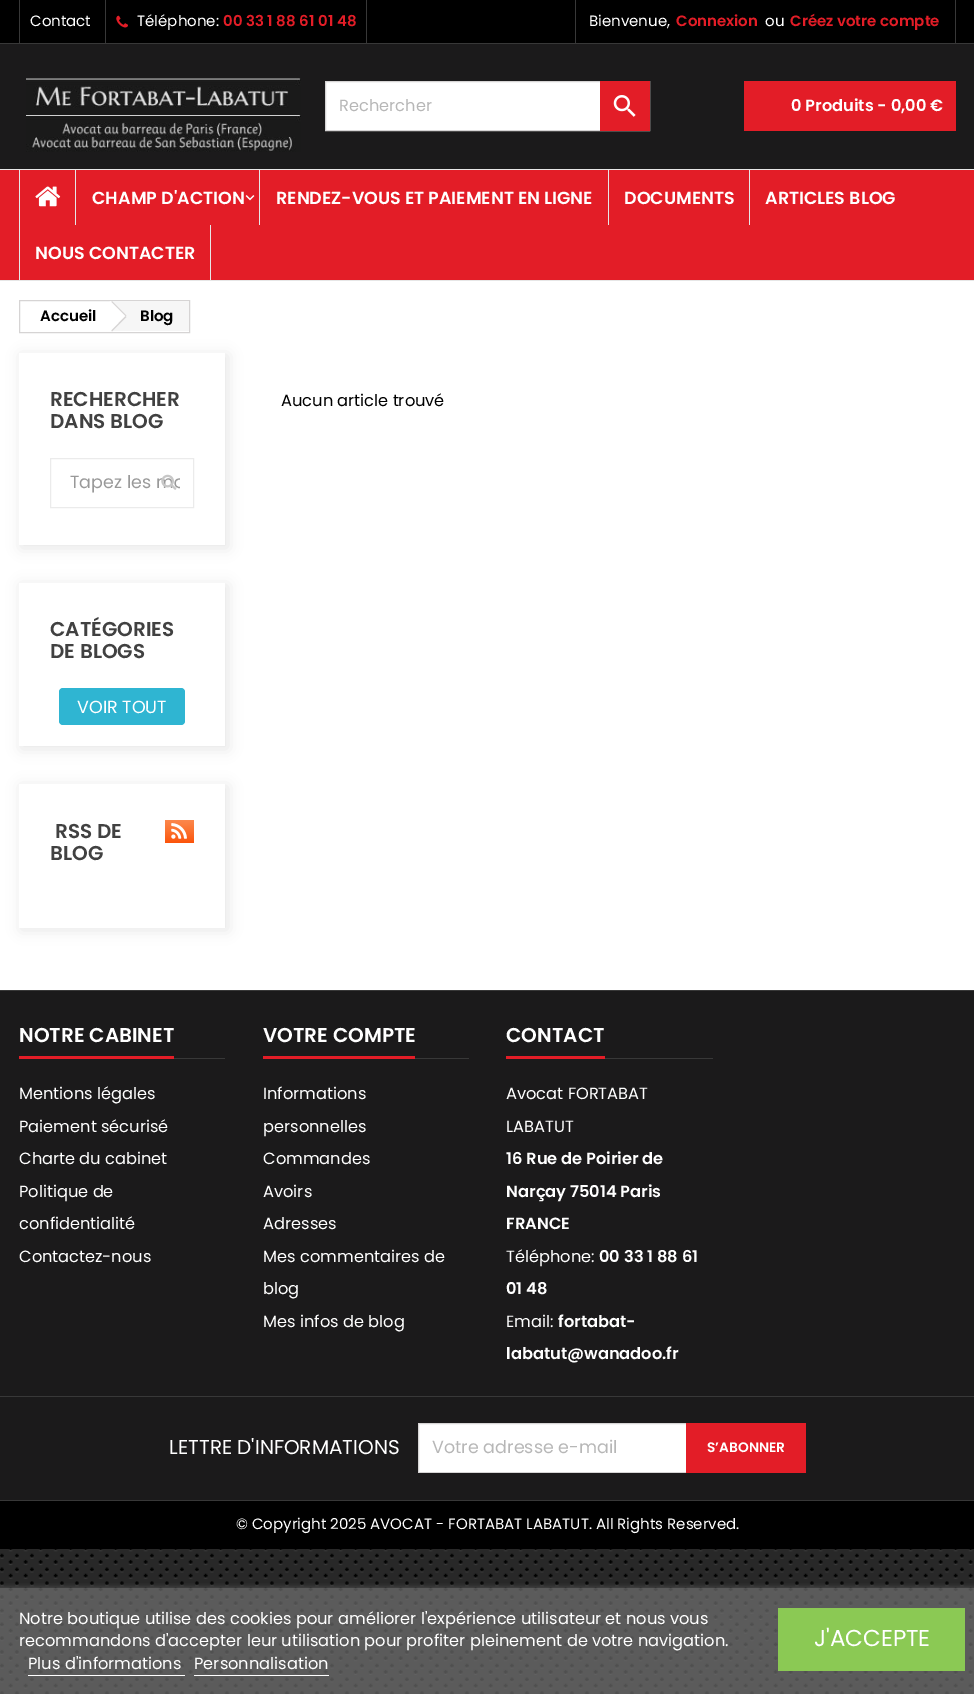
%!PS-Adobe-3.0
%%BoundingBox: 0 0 974 1694
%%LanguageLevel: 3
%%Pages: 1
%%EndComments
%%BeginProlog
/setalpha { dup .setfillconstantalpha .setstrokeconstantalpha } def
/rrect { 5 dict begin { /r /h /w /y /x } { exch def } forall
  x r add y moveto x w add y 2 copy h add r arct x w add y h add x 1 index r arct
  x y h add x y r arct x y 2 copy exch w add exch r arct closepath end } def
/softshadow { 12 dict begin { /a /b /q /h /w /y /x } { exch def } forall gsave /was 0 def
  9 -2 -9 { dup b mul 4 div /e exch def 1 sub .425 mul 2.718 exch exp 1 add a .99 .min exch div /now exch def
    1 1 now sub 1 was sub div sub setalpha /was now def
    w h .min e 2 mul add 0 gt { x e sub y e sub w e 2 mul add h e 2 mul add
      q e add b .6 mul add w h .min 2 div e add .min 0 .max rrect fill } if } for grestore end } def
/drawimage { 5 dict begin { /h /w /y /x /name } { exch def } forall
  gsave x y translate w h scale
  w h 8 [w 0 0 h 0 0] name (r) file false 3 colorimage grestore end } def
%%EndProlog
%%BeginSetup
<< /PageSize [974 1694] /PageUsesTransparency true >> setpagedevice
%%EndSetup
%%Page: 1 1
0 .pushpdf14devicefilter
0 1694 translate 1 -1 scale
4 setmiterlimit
0.157 setgray
0 0 974 1694 rectfill
(images/1.raw) 0 1549 973 145 drawimage
1 setgray
0 281 974 709 rectfill
0 setgray
0 0 974 43 rectfill
0.22 setgray
0 43 974 1 rectfill
19 0 1 43 rectfill
366 0 1 43 rectfill
105 0 1 43 rectfill
(images/2.raw) 116 15 12 13 drawimage
955 0 1 43 rectfill
575 0 1 43 rectfill
0.106 0.102 0.106 setrgbcolor
0 44 974 125 rectfill
(images/3.raw) 26 78 275 74 drawimage
1 setgray
326 82 274 48 rectfill
0.839 0.831 0.831 setrgbcolor
325.5 81.5 324 49 rectstroke
0.89 0.114 0.153 setrgbcolor
600 81 50 50 rectfill
(images/4.raw) 613 95 23 22 drawimage
744 81 212 50 rectfill
gsave
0 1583 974 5 rectclip
0.439 setgray
0 1589 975 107 0 3 1 softshadow
grestore
0.7 setalpha
0.439 setgray
0 1588 974 106 rectfill
1 setalpha
1 setgray
28 1675 157 1 rectfill
194 1675 135 1 rectfill
0.545 0.788 0.329 setrgbcolor
778 1608 187 63 rectfill
0.89 0.114 0.153 setrgbcolor
0 170 974 110 rectfill
0.902 setgray
0 169 974 1 rectfill
0 280 974 1 rectfill
19 170 1 110 rectfill
(images/5.raw) 35 186 26 21 drawimage
75 170 1 55 rectfill
(images/6.raw) 245 195 10 6 drawimage
259 170 1 55 rectfill
608 170 1 55 rectfill
749 170 1 55 rectfill
210 225 1 55 rectfill
0.839 0.831 0.831 setrgbcolor
19.5 300.5 170 32 rectstroke
0.965 setgray
113 301 76 30 rectfill
1 setgray
newpath 113 302 moveto 125.5 314.5 lineto 126.5 315.5 126.5 317 125.5 318 curveto 113 330.5 lineto 112 331.5 110.5 331.5 109.5 330.5 curveto 97 318 lineto 96 317 96 315.5 97 314.5 curveto 109.5 302 lineto 110.5 301 112 301 113 302 curveto closepath fill
0.839 0.831 0.831 setrgbcolor
newpath 112 301 moveto 126.5 315.5 lineto 125.5 316 lineto 111.5 302 lineto closepath 125.5 316 moveto 126.5 317 lineto 112 331.5 lineto 111.5 330.5 lineto closepath fill
gsave
newpath 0 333 moveto 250 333 lineto 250 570 lineto 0 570 lineto closepath 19 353 moveto 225 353 lineto 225 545 lineto 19 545 lineto closepath eoclip newpath
0 setgray
21 355 207 193 0 7 0.1 softshadow
grestore
0.922 setgray
50.5 458.5 143 49 rectstroke
gsave
newpath 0 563 moveto 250 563 lineto 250 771 lineto 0 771 lineto closepath 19 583 moveto 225 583 lineto 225 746 lineto 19 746 lineto closepath eoclip newpath
0 setgray
21 585 207 164 0 7 0.1 softshadow
grestore
0.184 0.71 0.824 setrgbcolor
59 688 126 37 4 rrect fill
0 setgray
21 786 207 144 0 7 0.1 softshadow
1 setgray
19 784 206 144 rectfill
gsave newpath 165 820 moveto 194 820 lineto 194 843 lineto 165 843 lineto closepath clip newpath
<< /ShadingType 2 /ColorSpace /DeviceRGB /Coords [179 820 179 843] /Extend [true true] /Function << /FunctionType 3 /Domain [0 1] /Functions [<< /FunctionType 2 /Domain [0 1] /C0 [0.988 0.533 0.302] /C1 [0.984 0.439 0.176] /N 1 >> << /FunctionType 2 /Domain [0 1] /C0 [0.984 0.439 0.176] /C1 [0.988 0.329 0.043] /N 1 >>] /Bounds [0.5] /Encode [0 1 0 1] >> >> shfill grestore
(images/8.raw) 171 823 16 16 drawimage
0.106 0.102 0.106 setrgbcolor
0 991 974 509 rectfill
0.22 setgray
0 990 974 1 rectfill
174 1058 51 1 rectfill
0.89 0.114 0.153 setrgbcolor
19 1056 155 3 rectfill
0.22 setgray
415 1058 54 1 rectfill
0.89 0.114 0.153 setrgbcolor
263 1056 152 3 rectfill
0.22 setgray
605 1058 108 1 rectfill
0.89 0.114 0.153 setrgbcolor
506 1056 99 3 rectfill
0.22 setgray
0 1396 974 1 rectfill
1 setgray
419 1424 267 48 rectfill
0.89 0.114 0.153 setrgbcolor
686 1423 120 50 rectfill
0 setgray
0 1501 974 48 rectfill
0.22 setgray
0 1500 974 1 rectfill
/Poppins-Regular [15 0 0 -15 0 0] selectfont
1 setgray
30 26 moveto (Contact) show
137 26 moveto (Téléphone:) show
/Poppins-SemiBold [15 0 0 -15 0 0] selectfont
0.89 0.114 0.153 setrgbcolor
223 26 moveto (00 33 1 88 61 01 48) show
/Poppins-Regular [15 0 0 -15 0 0] selectfont
1 setgray
589 26 moveto (Bienvenue,) show
/Poppins-SemiBold [15 0 0 -15 0 0] selectfont
0.89 0.114 0.153 setrgbcolor
676 26 moveto (Connexion) show
/Poppins-Regular [15 0 0 -15 0 0] selectfont
1 setgray
765 26 moveto (ou) show
/Poppins-SemiBold [15 0 0 -15 0 0] selectfont
0.89 0.114 0.153 setrgbcolor
790 26 moveto (Créez votre compte) show
/Poppins-Regular [16.25 0 0 -16.25 0 0] selectfont
0.718 setgray
339 111 moveto (Rechercher) show
/Poppins-SemiBold [16.25 0 0 -16.25 0 0] selectfont
1 setgray
791 111 moveto (0 Produits - 0,00 €) show
/Poppins-Regular [16.25 0 0 -16.25 0 0] selectfont
19 1624 moveto (Notre boutique utilise des cookies pour améliorer l'expérience utilisateur et nous vous) show
19 1646 moveto (recommandons d'accepter leur utilisation pour profiter pleinement de votre navigation.) show
28 1669 moveto (Plus d'informations) show
194 1669 moveto (Personnalisation) show
/Poppins-Regular [23 0 0 -23 0 0] selectfont
814 1646 moveto (J'ACCEPTE) show
/Poppins-SemiBold [17.5 0 0 -17.5 0 0] selectfont
92 204 moveto (CHAMP D'ACTION) show
276 204 moveto (RENDEZ-VOUS ET PAIEMENT EN LIGNE) show
624 204 moveto (DOCUMENTS) show
765 204 moveto (ARTICLES BLOG) show
35 259 moveto (NOUS CONTACTER) show
/Poppins-SemiBold [15 0 0 -15 0 0] selectfont
0 setgray
40 321 moveto (Accueil) show
140 321 moveto (Blog) show
/Poppins-SemiBold [20 0 0 -20 0 0] selectfont
0.255 setgray
50 406 moveto (RECHERCHER) show
50 428 moveto (DANS BLOG) show
gsave
70 470 110 26 rectclip
/Poppins-Regular [17.5 0 0 -17.5 0 0] selectfont
0.6 setgray
70 488 moveto (Tapez les mo) show
grestore
(images/7.raw) 161 474 16 16 drawimage
50 636 moveto (CATÉGORIES) show
50 658 moveto (DE BLOGS) show
/Poppins-Regular [17.5 0 0 -17.5 0 0] selectfont
1 setgray
77 713 moveto (VOIR TOUT) show
/Poppins-SemiBold [20 0 0 -20 0 0] selectfont
0.255 setgray
55 838 moveto (RSS DE) show
50 860 moveto (BLOG) show
/Poppins-Regular [16.25 0 0 -16.25 0 0] selectfont
0 setgray
281 406 moveto (Aucun article trouvé) show
/Poppins-SemiBold [20 0 0 -20 0 0] selectfont
1 setgray
19 1042 moveto (NOTRE CABINET) show
/Poppins-Regular [16.25 0 0 -16.25 0 0] selectfont
19 1099 moveto (Mentions légales) show
19 1132 moveto (Paiement sécurisé) show
19 1164 moveto (Charte du cabinet) show
19 1197 moveto (Politique de) show
19 1229 moveto (confidentialité) show
19 1262 moveto (Contactez-nous) show
/Poppins-SemiBold [20 0 0 -20 0 0] selectfont
263 1042 moveto (VOTRE COMPTE) show
/Poppins-Regular [16.25 0 0 -16.25 0 0] selectfont
263 1099 moveto (Informations) show
263 1132 moveto (personnelles) show
263 1164 moveto (Commandes) show
263 1197 moveto (Avoirs) show
263 1229 moveto (Adresses) show
263 1262 moveto (Mes commentaires de) show
263 1294 moveto (blog) show
263 1327 moveto (Mes infos de blog) show
/Poppins-SemiBold [20 0 0 -20 0 0] selectfont
506 1042 moveto (CONTACT) show
/Poppins-Regular [16.25 0 0 -16.25 0 0] selectfont
506 1099 moveto (Avocat FORTABAT) show
506 1132 moveto (LABATUT) show
/Poppins-SemiBold [16.25 0 0 -16.25 0 0] selectfont
506 1164 moveto (16 Rue de Poirier de) show
506 1197 moveto (Narçay 75014 Paris) show
506 1229 moveto (FRANCE) show
/Poppins-Regular [16.25 0 0 -16.25 0 0] selectfont
506 1262 moveto (Téléphone:) show
/Poppins-SemiBold [16.25 0 0 -16.25 0 0] selectfont
599 1262 moveto (00 33 1 88 61) show
506 1294 moveto (01 48) show
/Poppins-Regular [16.25 0 0 -16.25 0 0] selectfont
506 1327 moveto (Email:) show
/Poppins-SemiBold [16.25 0 0 -16.25 0 0] selectfont
558 1327 moveto (fortabat-) show
506 1359 moveto (labatut@wanadoo.fr) show
/Poppins-Regular [20 0 0 -20 0 0] selectfont
169 1454 moveto (LETTRE D'INFORMATIONS) show
/Poppins-SemiBold [13.75 0 0 -13.75 0 0] selectfont
707 1452 moveto (S’ABONNER) show
gsave
418 1423 268 50 rectclip
0.839 0.831 0.831 setrgbcolor
418.5 1423.5 317 49 rectstroke
grestore
/Poppins-Regular [17.5 0 0 -17.5 0 0] selectfont
0.718 setgray
432 1453 moveto (Votre adresse e-mail) show
/Poppins-Regular [15 0 0 -15 0 0] selectfont
1 setgray
236 1529 moveto (© Copyright 2025 AVOCAT - FORTABAT LABATUT. All Rights Reserved.) show
.poppdf14devicefilter showpage
%%EOF
